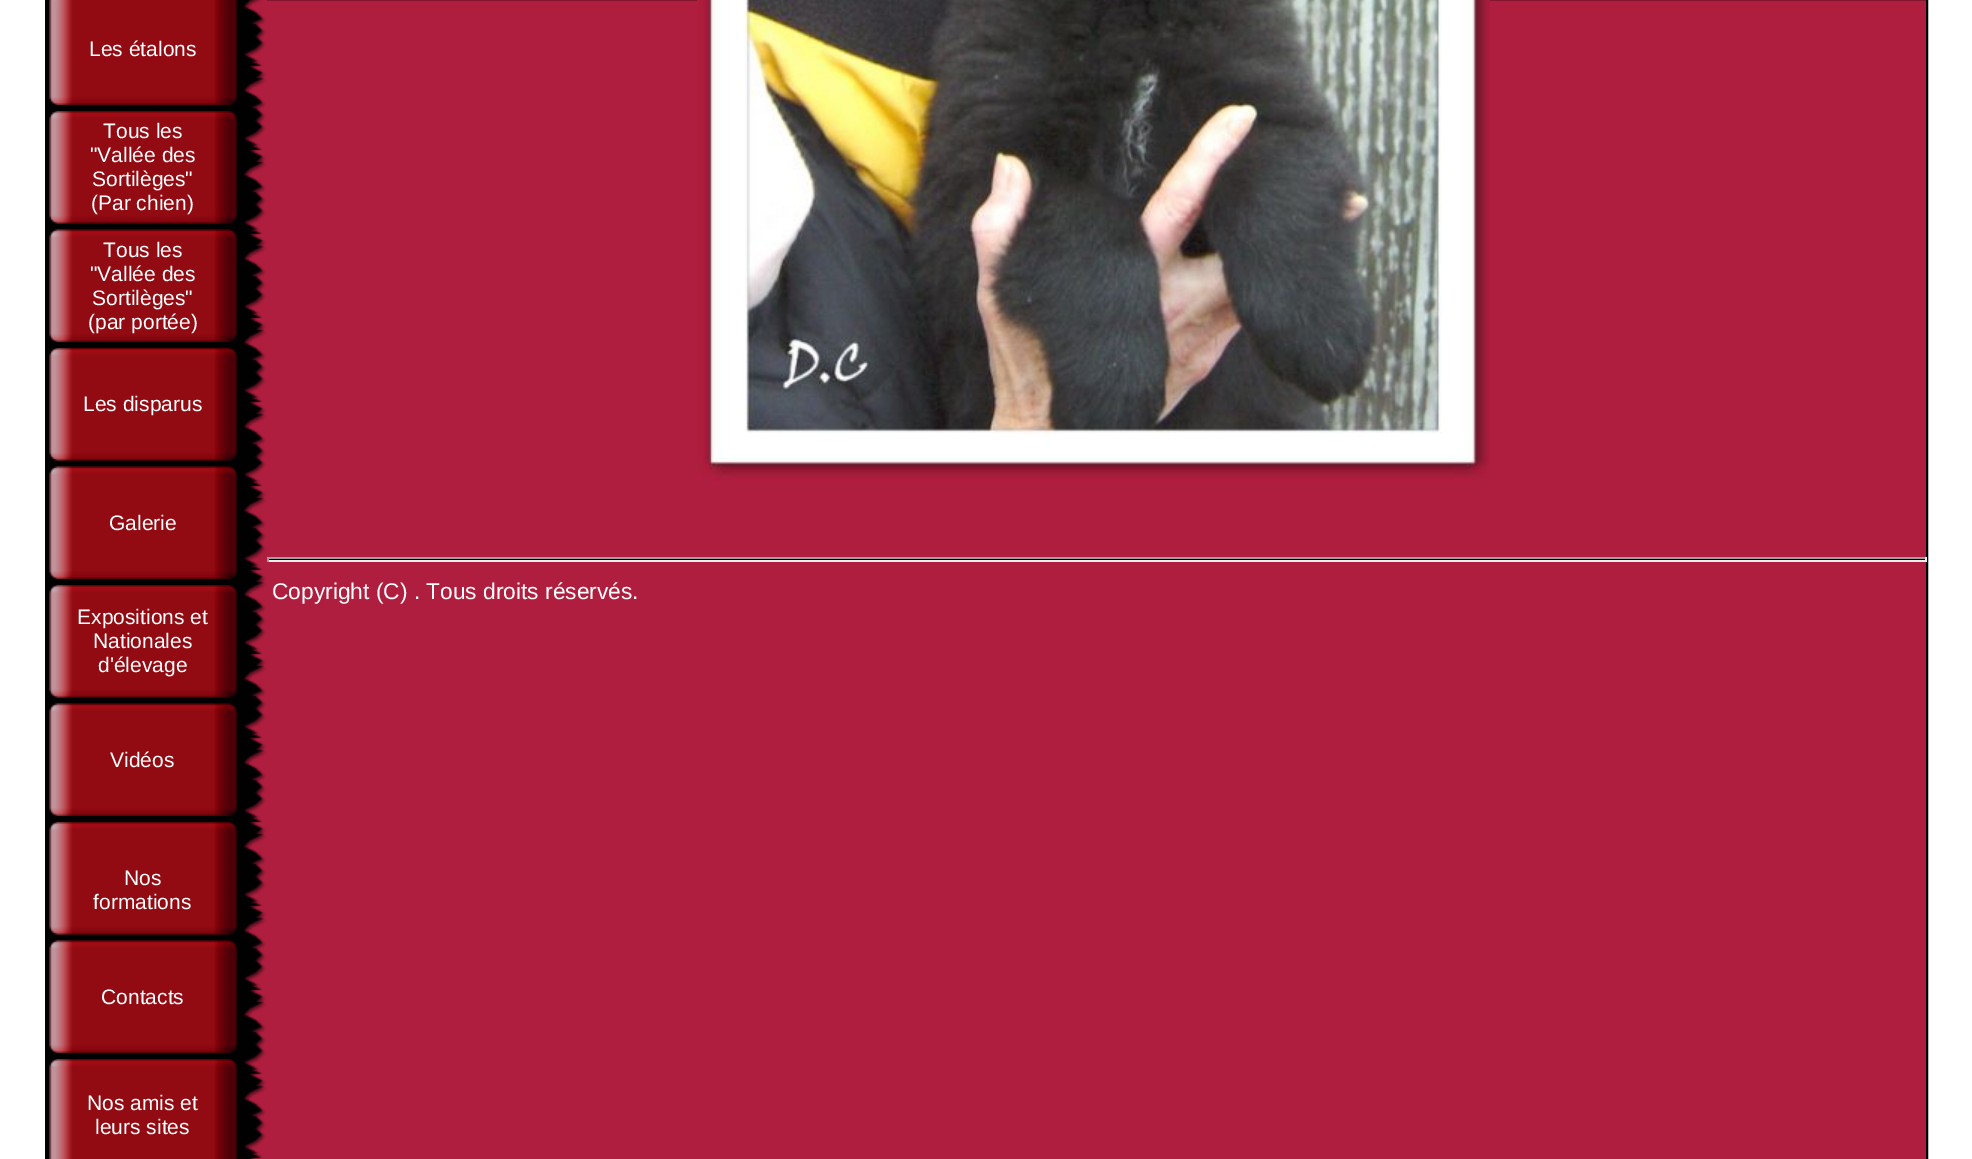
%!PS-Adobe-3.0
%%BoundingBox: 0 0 1972 1159
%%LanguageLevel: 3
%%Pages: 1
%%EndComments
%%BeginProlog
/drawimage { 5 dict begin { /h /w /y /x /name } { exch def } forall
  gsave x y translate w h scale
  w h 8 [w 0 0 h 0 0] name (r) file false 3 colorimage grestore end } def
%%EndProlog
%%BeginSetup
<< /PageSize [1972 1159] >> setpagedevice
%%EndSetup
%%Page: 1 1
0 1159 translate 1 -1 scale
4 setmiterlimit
1 setgray
0 0 1972 1159 rectfill
0.69 0.118 0.247 setrgbcolor
267 0 1659 1159 rectfill
0.004 0.004 0.008 setrgbcolor
2 setlinewidth
46 -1 1881 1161 rectstroke
47 0 196 1159 rectfill
(images/1.raw) 49 0 188 105 drawimage
(images/2.raw) 49 0 1 99 drawimage
(images/3.raw) 49 111 188 113 drawimage
(images/4.raw) 49 117 181 107 drawimage
(images/5.raw) 49 229 188 113 drawimage
(images/6.raw) 49 229 182 107 drawimage
(images/3.raw) 49 348 188 113 drawimage
(images/4.raw) 49 354 181 107 drawimage
(images/5.raw) 49 466 188 113 drawimage
(images/6.raw) 49 466 182 107 drawimage
(images/3.raw) 49 585 188 113 drawimage
(images/4.raw) 49 591 181 107 drawimage
(images/5.raw) 49 703 188 113 drawimage
(images/6.raw) 49 703 182 107 drawimage
(images/3.raw) 49 822 188 113 drawimage
(images/4.raw) 49 828 181 107 drawimage
(images/5.raw) 49 940 188 113 drawimage
(images/6.raw) 49 940 182 107 drawimage
(images/7.raw) 49 1059 188 100 drawimage
(images/8.raw) 49 1065 1 94 drawimage
(images/9.raw) 243 0 24 1159 drawimage
(images/10.raw) 697 0 793 481 drawimage
267 559 1659 1 rectfill
0.624 setgray
267 557 1659 2 rectfill
0.933 setgray
1925 557 2 5 rectfill
267 560 1659 2 rectfill
0.624 setgray
267 557 2 5 rectfill
/LiberationSans-Regular [21 0 0 -21 0 0] selectfont
1 setgray
89 56 moveto (Les étalons) show
103 138 moveto (Tous les) show
90 162 moveto ("Vallée des) show
92 186 moveto (Sortilèges") show
91 210 moveto (\(Par chien\)) show
103 257 moveto (Tous les) show
90 281 moveto ("Vallée des) show
92 305 moveto (Sortilèges") show
88 329 moveto (\(par portée\)) show
83 411 moveto (Les disparus) show
109 530 moveto (Galerie) show
77 624 moveto (Expositions et) show
93 648 moveto (Nationales) show
98 672 moveto (d'élevage) show
110 767 moveto (Vidéos) show
124 885 moveto (Nos) show
93 909 moveto (formations) show
101 1004 moveto (Contacts) show
87 1110 moveto (Nos amis et) show
95 1134 moveto (leurs sites) show
/LiberationSans-Regular [22.75 0 0 -22.75 0 0] selectfont
272 599 moveto (Copyright \(C\) . Tous droits réservés.) show
showpage
%%EOF
